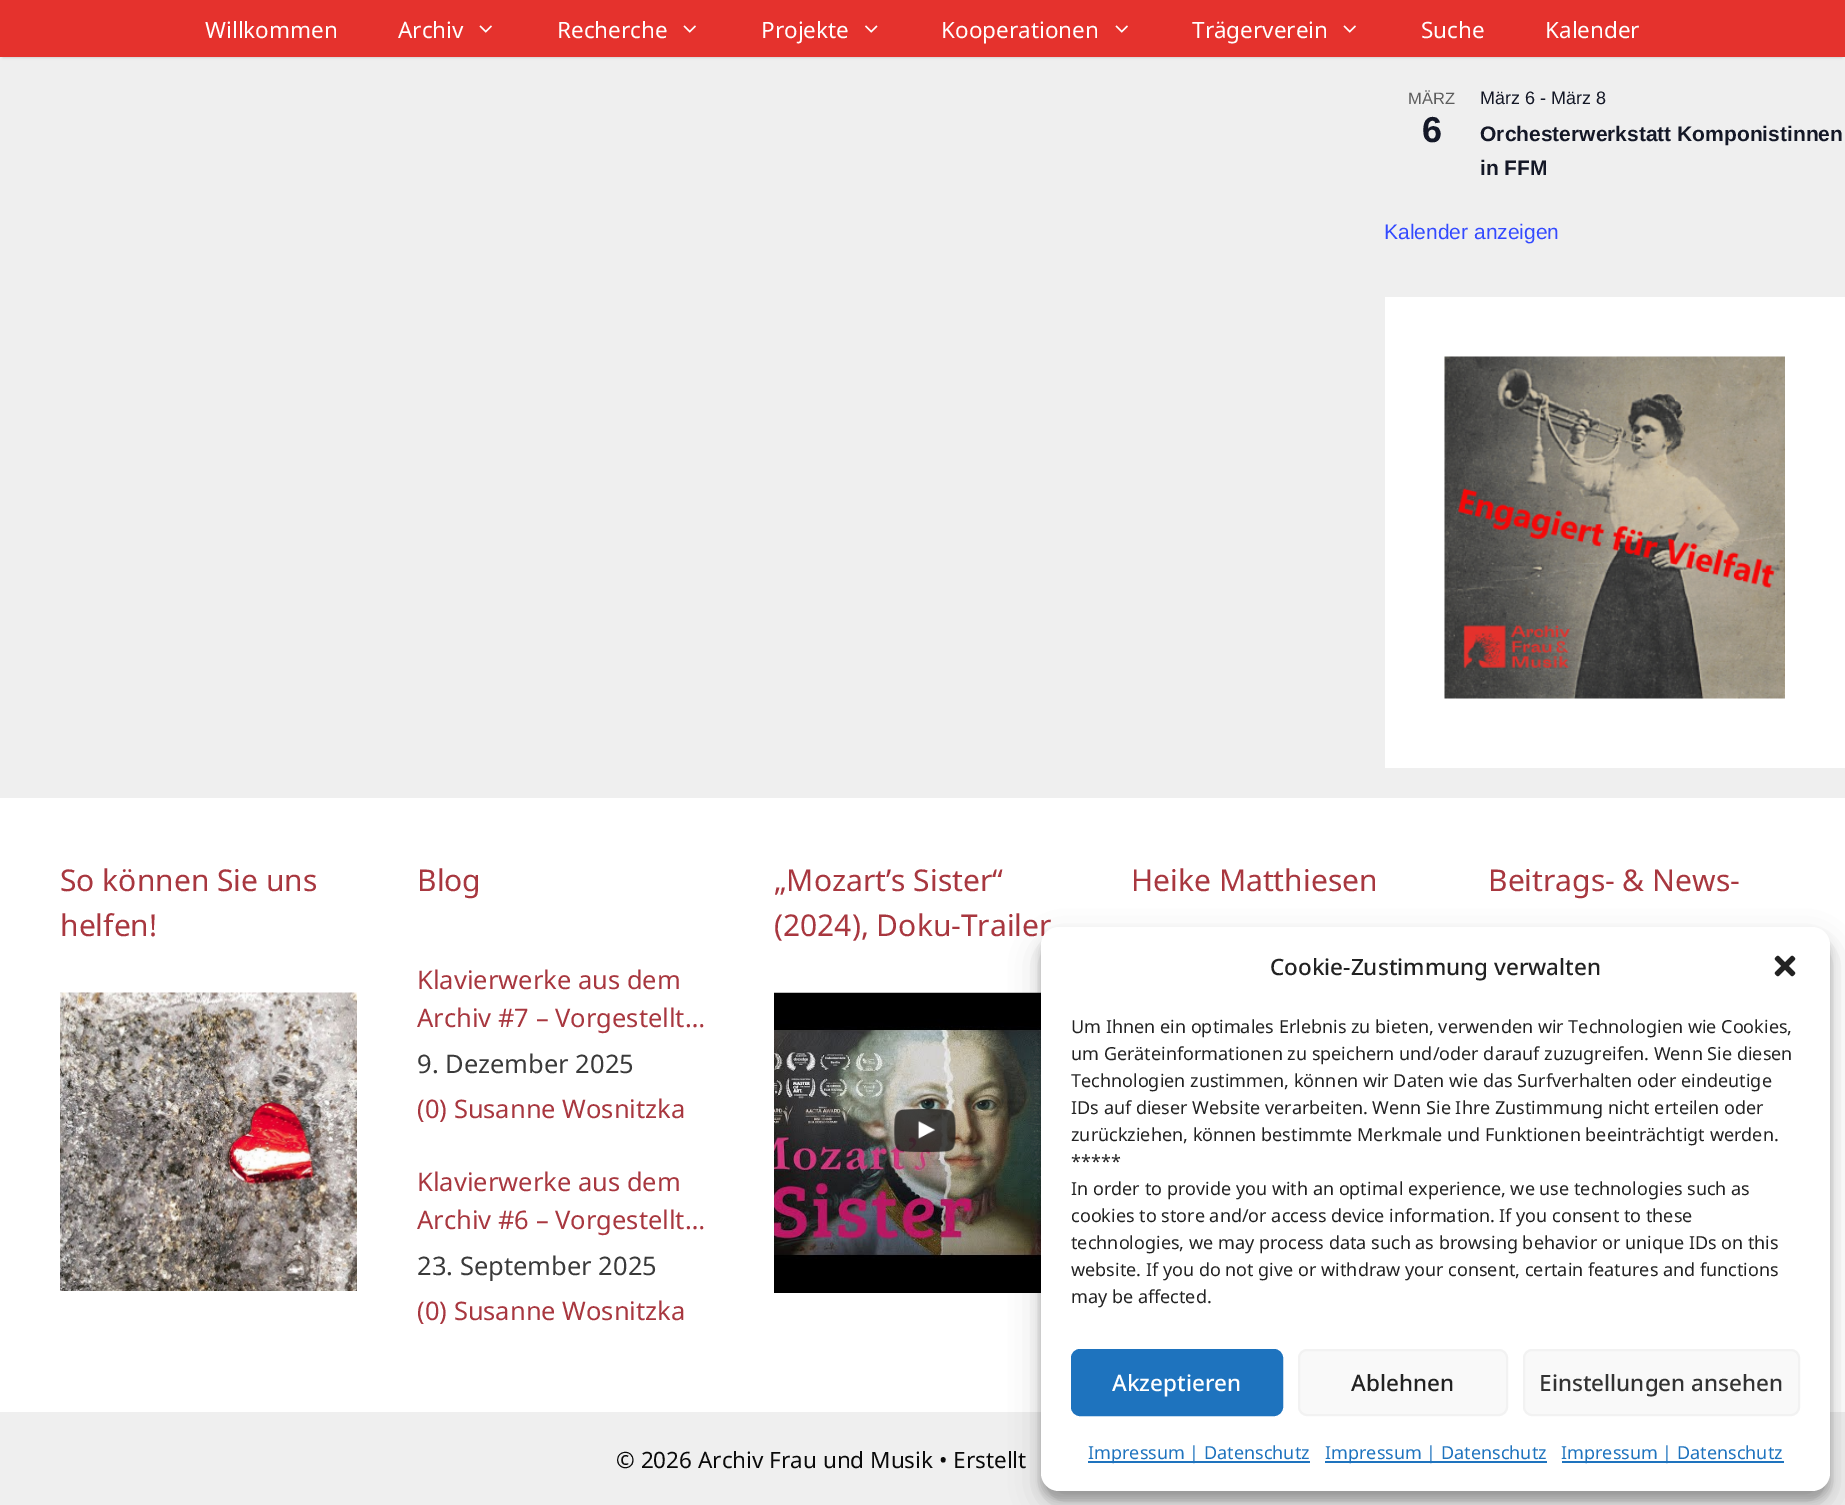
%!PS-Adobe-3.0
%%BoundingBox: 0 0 1845 1505
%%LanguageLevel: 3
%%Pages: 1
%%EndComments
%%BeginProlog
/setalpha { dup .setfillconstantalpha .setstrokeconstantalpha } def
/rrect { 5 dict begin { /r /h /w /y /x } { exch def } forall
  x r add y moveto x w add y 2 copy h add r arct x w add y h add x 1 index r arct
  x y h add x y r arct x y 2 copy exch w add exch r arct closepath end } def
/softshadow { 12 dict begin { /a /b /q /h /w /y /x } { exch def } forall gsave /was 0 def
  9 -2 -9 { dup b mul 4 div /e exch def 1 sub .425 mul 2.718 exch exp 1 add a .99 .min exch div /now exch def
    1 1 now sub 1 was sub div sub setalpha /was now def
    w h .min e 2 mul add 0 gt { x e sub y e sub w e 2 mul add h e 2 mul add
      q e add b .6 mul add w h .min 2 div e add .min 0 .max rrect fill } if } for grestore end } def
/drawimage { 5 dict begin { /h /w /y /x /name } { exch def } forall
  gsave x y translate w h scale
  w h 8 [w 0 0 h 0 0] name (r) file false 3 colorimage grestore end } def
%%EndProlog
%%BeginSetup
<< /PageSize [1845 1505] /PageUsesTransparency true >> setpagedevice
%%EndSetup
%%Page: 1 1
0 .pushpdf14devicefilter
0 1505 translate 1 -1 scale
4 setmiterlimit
0.937 setgray
0 0 1845 1505 rectfill
0 setgray
3 6 1839 51 0 1.5 0.2 softshadow
0.898 0.196 0.176 setrgbcolor
0 0 1845 57 rectfill
(images/1.raw) 479 25 13 8 drawimage
(images/1.raw) 683 25 13 8 drawimage
(images/2.raw) 865 25 13 8 drawimage
(images/1.raw) 1115 25 13 8 drawimage
(images/1.raw) 1343 25 13 8 drawimage
1 setgray
1385 297 460 471 rectfill
(images/3.raw) 1444 356 341 343 drawimage
0 798 1845 614 rectfill
(images/4.raw) 60 992 297 299 drawimage
0 setgray
774 1259 267 34 rectfill
(images/5.raw) 774 992 267 267 drawimage
(images/6.raw) 894 1109 62 44 drawimage
1041 936 789 564 18 4.5 0.23 softshadow
1041 942 789 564 18 15 0.19 softshadow
/NotoSans-Regular [22.5 0 0 -22.5 0 0] selectfont
1 setgray
205 38 moveto (Willkommen) show
398 38 moveto (Archiv) show
557 38 moveto (Recherche) show
761 38 moveto (Projekte) show
941 38 moveto (Kooperationen) show
1192 38 moveto (Trägerverein) show
1421 38 moveto (Suche) show
1545 38 moveto (Kalender) show
/LiberationSans-Regular [16.5 0 0 -16.5 0 0] selectfont
0.365 setgray
1408 104 moveto (MÄRZ) show
/LiberationSans-Bold [36 0 0 -36 0 0] selectfont
0.078 0.094 0.153 setrgbcolor
1422 142 moveto (6) show
/LiberationSans-Regular [18 0 0 -18 0 0] selectfont
1480 104 moveto (März 6 - März 8) show
/LiberationSans-Bold [21 0 0 -21 0 0] selectfont
1480 141 moveto (Orchesterwerkstatt Komponistinnen) show
1480 175 moveto (in FFM) show
/LiberationSans-Regular [21 0 0 -21 0 0] selectfont
0.2 0.29 1 setrgbcolor
1384 239 moveto (Kalender anzeigen) show
/NotoSans-Regular [30 0 0 -30 0 0] selectfont
0.659 0.216 0.247 setrgbcolor
60 891 moveto (So können Sie uns) show
60 936 moveto (helfen!) show
417 891 moveto (Blog) show
/NotoSans-Regular [25.5 0 0 -25.5 0 0] selectfont
417 989 moveto (Klavierwerke aus dem) show
417 1027 moveto (Archiv #7 – Vorgestellt…) show
0.227 setgray
417 1073 moveto (9. Dezember 2025) show
0.659 0.216 0.247 setrgbcolor
417 1118 moveto (\(0\) Susanne Wosnitzka) show
417 1191 moveto (Klavierwerke aus dem) show
417 1229 moveto (Archiv #6 – Vorgestellt…) show
0.227 setgray
417 1275 moveto (23. September 2025) show
0.659 0.216 0.247 setrgbcolor
417 1320 moveto (\(0\) Susanne Wosnitzka) show
/NotoSans-Regular [30 0 0 -30 0 0] selectfont
774 891 moveto („Mozart’s Sister“) show
774 936 moveto (\(2024\), Doku-Trailer) show
1131 891 moveto (Heike Matthiesen) show
1488 891 moveto (Beitrags- & News-) show
/NotoSans-Regular [22.5 0 0 -22.5 0 0] selectfont
0.039 setgray
616 1468 moveto (© 2026 Archiv Frau und Musik • Erstellt) show
1 setgray
1041 927 789 564 18 rrect fill
/NotoSans-Medium [22.5 0 0 -22.5 0 0] selectfont
0.133 setgray
1270 975 moveto (Cookie-Zustimmung verwalten) show
(images/7.raw) 1774 955 22 22 drawimage
/NotoSans-Regular [18 0 0 -18 0 0] selectfont
1071 1033 moveto (Um Ihnen ein optimales Erlebnis zu bieten, verwenden wir Technologien wie Cookies,) show
1071 1060 moveto (um Geräteinformationen zu speichern und/oder darauf zuzugreifen. Wenn Sie diesen) show
1071 1087 moveto (Technologien zustimmen, können wir Daten wie das Surfverhalten oder eindeutige) show
1071 1114 moveto (IDs auf dieser Website verarbeiten. Wenn Sie Ihre Zustimmung nicht erteilen oder) show
1071 1141 moveto (zurückziehen, können bestimmte Merkmale und Funktionen beeinträchtigt werden.) show
1071 1168 moveto (*****) show
1071 1195 moveto (In order to provide you with an optimal experience, we use technologies such as) show
1071 1222 moveto (cookies to store and/or access device information. If you consent to these) show
1071 1249 moveto (technologies, we may process data such as browsing behavior or unique IDs on this) show
1071 1276 moveto (website. If you do not give or withdraw your consent, certain features and functions) show
1071 1303 moveto (may be affected.) show
0.118 0.451 0.745 setrgbcolor
1072 1350 210 65 8 rrect gsave fill grestore
2 setlinewidth
stroke
/NotoSans-Medium [22.5 0 0 -22.5 0 0] selectfont
1 setgray
1112 1391 moveto (Akzeptieren) show
0.976 setgray
1299 1350 208 65 8 rrect gsave fill grestore
0.949 setgray
stroke
0.133 setgray
1351 1391 moveto (Ablehnen) show
0.976 setgray
1524 1350 275 65 8 rrect gsave fill grestore
0.949 setgray
stroke
0.2 setgray
1539 1391 moveto (Einstellungen ansehen) show
0.118 0.451 0.745 setrgbcolor
1088 1461 222 2 rectfill
/NotoSans-Regular [18 0 0 -18 0 0] selectfont
1088 1459 moveto (Impressum | Datenschutz) show
1325 1461 222 2 rectfill
1325 1459 moveto (Impressum | Datenschutz) show
1562 1461 222 2 rectfill
1561 1459 moveto (Impressum | Datenschutz) show
.poppdf14devicefilter showpage
%%EOF
